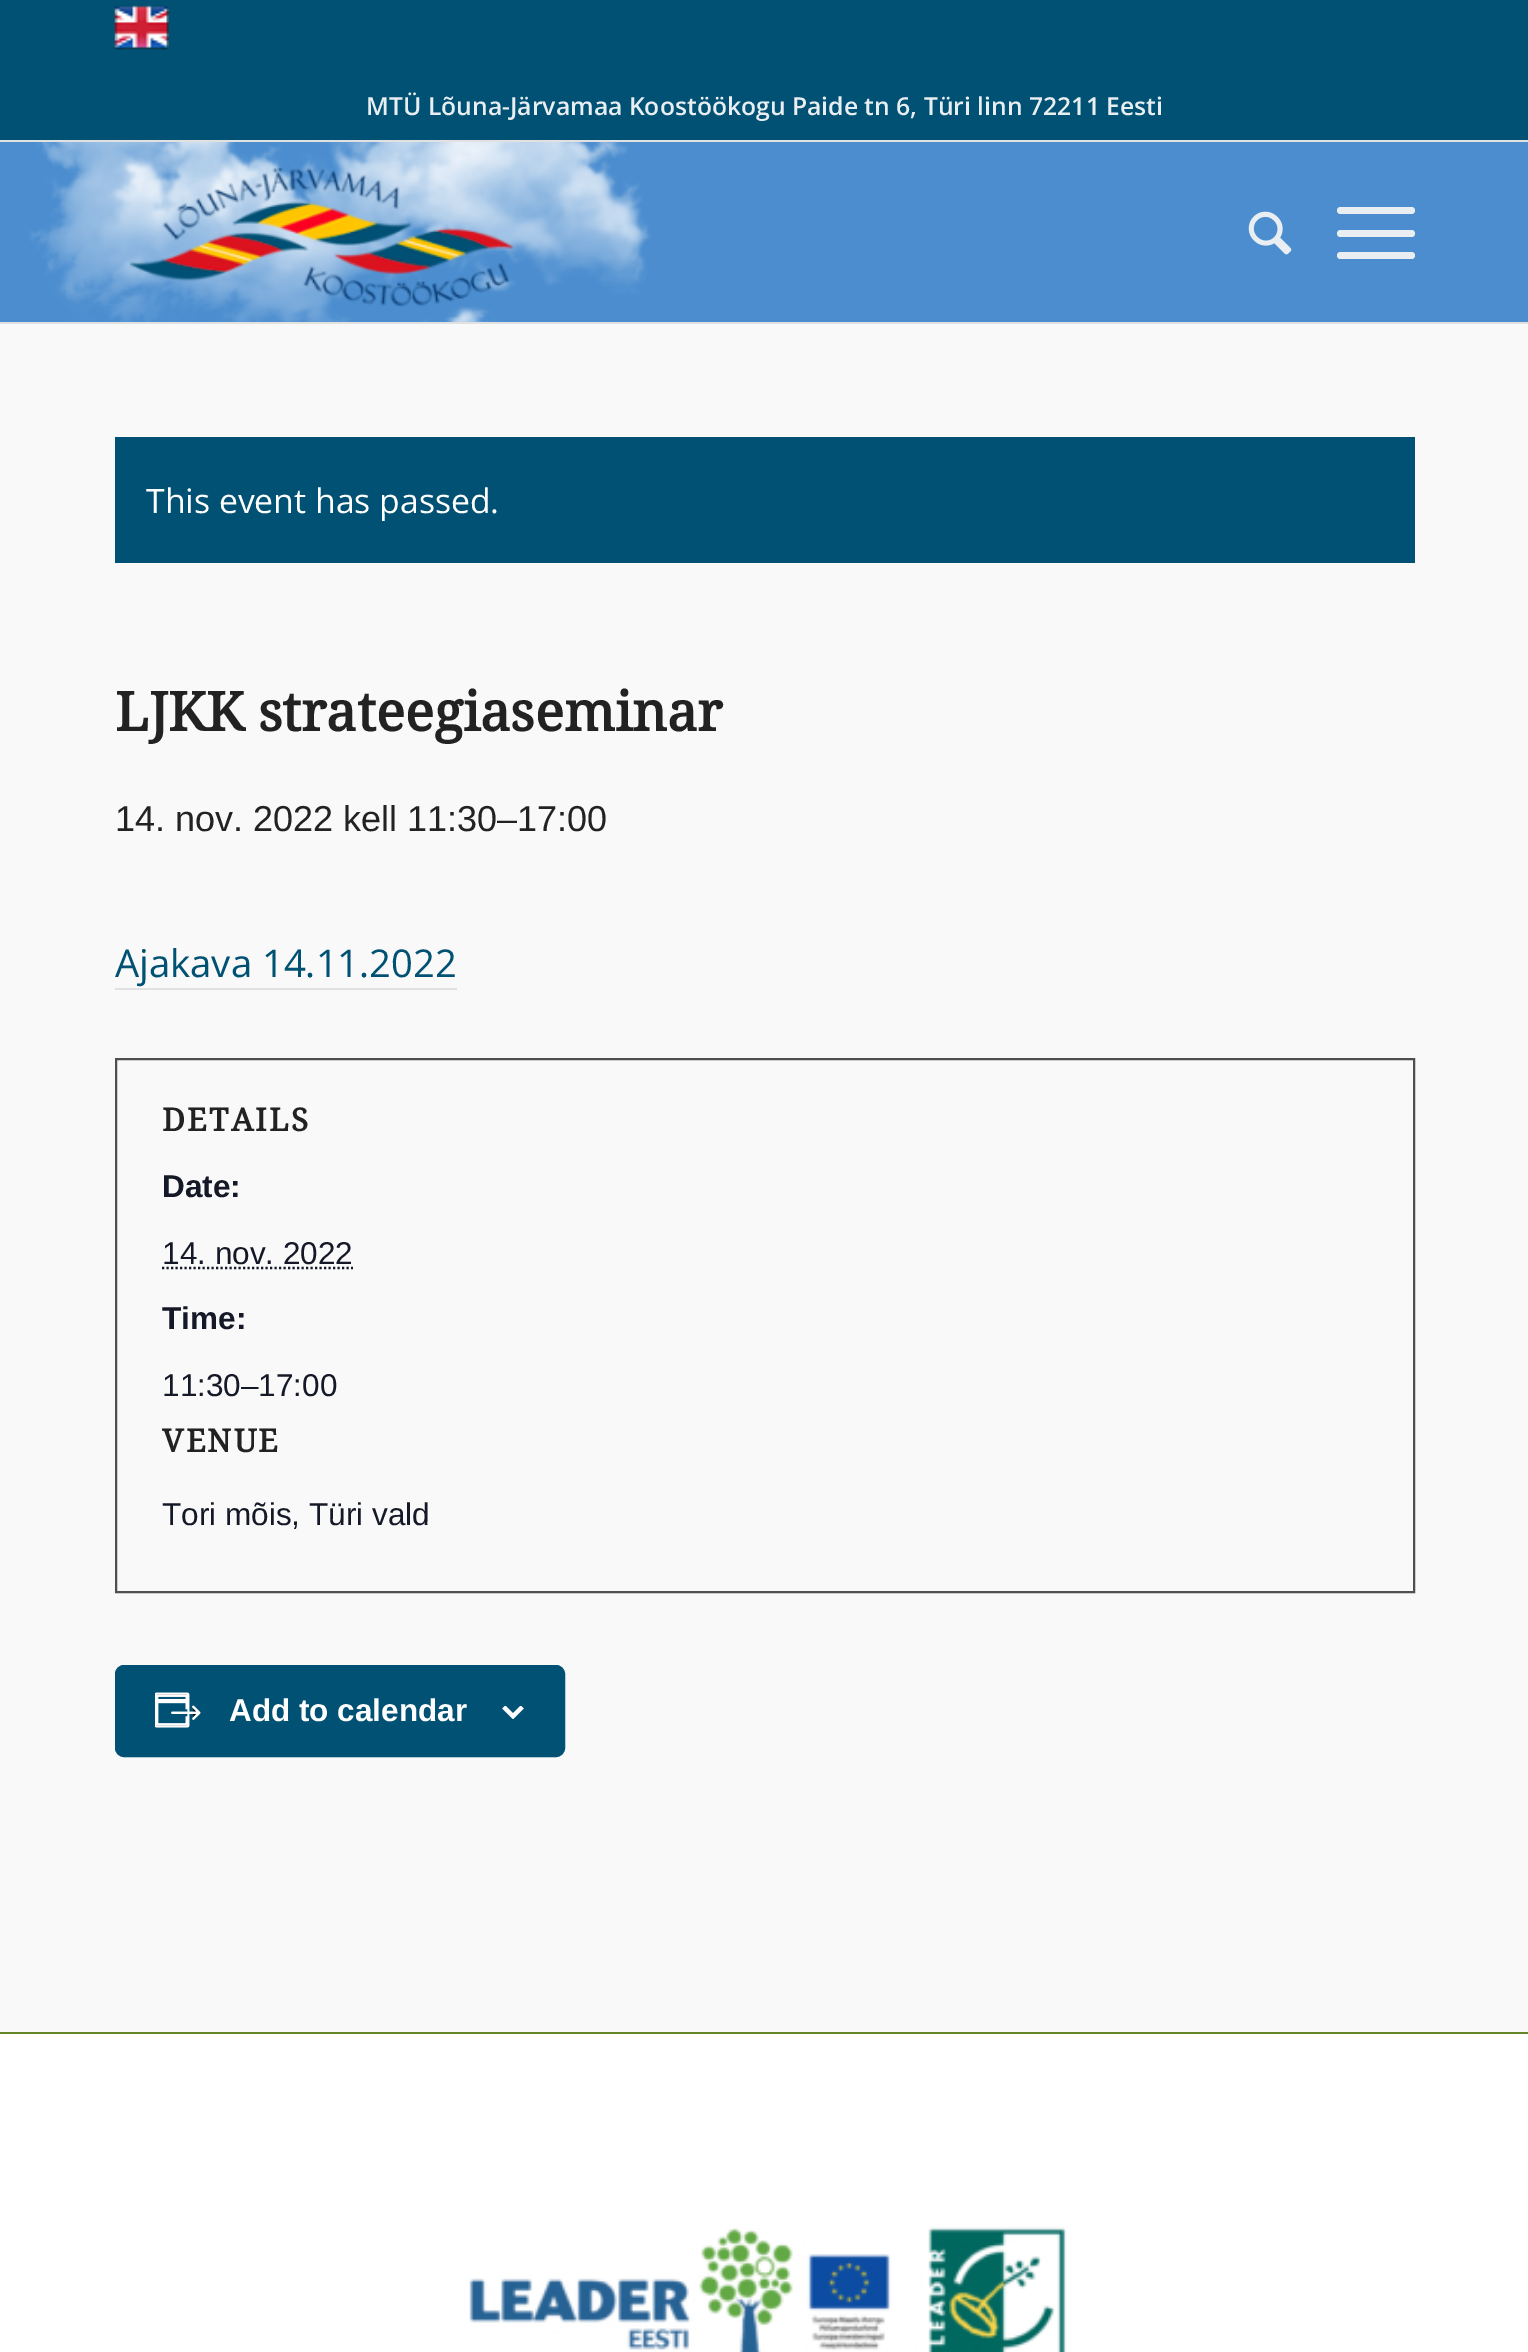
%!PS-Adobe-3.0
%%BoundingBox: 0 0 1528 2352
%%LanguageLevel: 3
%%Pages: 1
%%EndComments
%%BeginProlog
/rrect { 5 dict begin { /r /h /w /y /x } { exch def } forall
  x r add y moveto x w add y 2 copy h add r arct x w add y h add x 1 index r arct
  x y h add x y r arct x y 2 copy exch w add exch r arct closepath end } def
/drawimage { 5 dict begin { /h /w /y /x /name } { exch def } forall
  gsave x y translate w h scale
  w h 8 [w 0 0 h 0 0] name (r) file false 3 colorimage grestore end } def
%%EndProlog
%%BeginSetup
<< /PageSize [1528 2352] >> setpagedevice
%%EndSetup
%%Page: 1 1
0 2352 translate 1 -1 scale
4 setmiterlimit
0.976 setgray
0 0 1528 2352 rectfill
0 0.318 0.451 setrgbcolor
0 0 1528 140 rectfill
0.882 setgray
0 140 1528 2 rectfill
(images/1.raw) 114 4 55 46 drawimage
0.294 0.553 0.812 setrgbcolor
0 142 1528 180 rectfill
(images/2.raw) 28 142 624 180 drawimage
0.882 setgray
0 322 1528 2 rectfill
(images/3.raw) 129 167 386 140 drawimage
(images/4.raw) 1248 211 44 44 drawimage
0.914 0.933 0.949 setrgbcolor
1337 230 78 7 3.5 rrect fill
1337 207 78 7 3.5 rrect fill
1337 252 78 7 3.5 rrect fill
0 0.318 0.451 setrgbcolor
115 437 1300 126 rectfill
0.882 setgray
115 988 342 2 rectfill
0.31 setgray
2 setlinewidth
116 1059 1298 533 rectstroke
0.078 0.094 0.153 setrgbcolor
2.2 setlinewidth
[2.25 2.25] 0 setdash
newpath 162 1268 moveto 353 1268 lineto stroke
0 0.318 0.451 setrgbcolor
116 1666 448 90 8 rrect gsave fill grestore
2 setlinewidth
[] 0 setdash
stroke
(images/5.raw) 155 1692 46 36 drawimage
(images/6.raw) 502 1706 22 13 drawimage
1 setgray
0 2034 1528 318 rectfill
0.396 0.522 0.161 setrgbcolor
0 2032 1528 2 rectfill
(images/7.raw) 469 2227 598 125 drawimage
/OpenSans-SemiBold [24.75 0 0 -24.75 0 0] selectfont
0.914 0.933 0.949 setrgbcolor
366 115 moveto (MTÜ Lõuna-Järvamaa Koostöökogu Paide tn 6, Türi linn 72211 Eesti) show
/OpenSans-Regular [33.75 0 0 -33.75 0 0] selectfont
1 setgray
146 513 moveto (This event has passed.) show
/DroidSerif-Bold [54 0 0 -54 0 0] selectfont
0.133 setgray
115 731 moveto (LJKK strateegiaseminar) show
/LiberationSans-Regular [36 0 0 -36 0 0] selectfont
115 831 moveto (14. nov. 2022 kell 11:30–17:00) show
/OpenSans-Regular [38.25 0 0 -38.25 0 0] selectfont
0 0.318 0.451 setrgbcolor
115 977 moveto (Ajakava 14.11.2022) show
/DroidSerif-Bold [31.5 0 0 -31.5 0 0] selectfont
0.133 setgray
162 1131 moveto 2.25 0 (DETAILS) ashow
/LiberationSans-Bold [31.5 0 0 -31.5 0 0] selectfont
0.078 0.094 0.153 setrgbcolor
162 1197 moveto (Date:) show
/LiberationSans-Regular [31.5 0 0 -31.5 0 0] selectfont
162 1264 moveto (14. nov. 2022) show
/LiberationSans-Bold [31.5 0 0 -31.5 0 0] selectfont
162 1329 moveto (Time:) show
/LiberationSans-Regular [31.5 0 0 -31.5 0 0] selectfont
162 1396 moveto (11:30–17:00) show
/DroidSerif-Bold [31.5 0 0 -31.5 0 0] selectfont
0.133 setgray
162 1452 moveto 2.25 0 (VENUE) ashow
/LiberationSans-Regular [31.5 0 0 -31.5 0 0] selectfont
0.078 0.094 0.153 setrgbcolor
162 1525 moveto (Tori mõis, Türi vald) show
/LiberationSans-Bold [31.5 0 0 -31.5 0 0] selectfont
1 setgray
229 1721 moveto (Add to calendar) show
showpage
%%EOF
